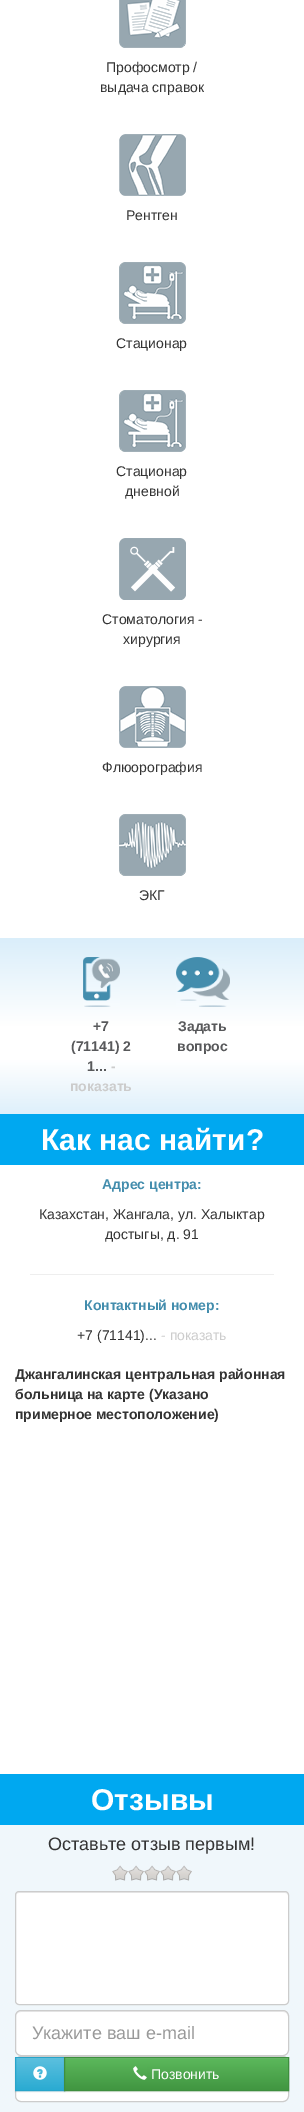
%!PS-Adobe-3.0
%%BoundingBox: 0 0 304 2112
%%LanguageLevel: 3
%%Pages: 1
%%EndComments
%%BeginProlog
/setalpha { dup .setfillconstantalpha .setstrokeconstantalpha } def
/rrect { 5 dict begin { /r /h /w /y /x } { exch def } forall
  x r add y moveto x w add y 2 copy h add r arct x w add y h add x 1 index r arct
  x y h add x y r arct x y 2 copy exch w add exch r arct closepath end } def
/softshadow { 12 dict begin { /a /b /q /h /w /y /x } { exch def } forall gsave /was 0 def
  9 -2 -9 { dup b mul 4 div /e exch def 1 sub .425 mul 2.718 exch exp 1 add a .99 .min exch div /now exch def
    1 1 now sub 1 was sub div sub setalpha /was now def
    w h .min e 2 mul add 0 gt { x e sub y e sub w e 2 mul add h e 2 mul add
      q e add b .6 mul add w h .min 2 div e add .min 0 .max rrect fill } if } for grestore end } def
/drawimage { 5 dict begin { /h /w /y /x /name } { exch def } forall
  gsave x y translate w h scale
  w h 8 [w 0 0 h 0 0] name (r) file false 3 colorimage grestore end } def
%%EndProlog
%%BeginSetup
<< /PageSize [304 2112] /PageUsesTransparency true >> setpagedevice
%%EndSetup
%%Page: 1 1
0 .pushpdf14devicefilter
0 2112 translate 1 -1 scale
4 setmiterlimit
1 setgray
0 0 304 2112 rectfill
(images/1.raw) 119 0 67 48 drawimage
(images/2.raw) 119 134 67 62 drawimage
(images/3.raw) 119 262 67 62 drawimage
(images/3.raw) 119 390 67 62 drawimage
(images/4.raw) 119 538 67 62 drawimage
(images/5.raw) 119 686 67 62 drawimage
(images/6.raw) 119 814 67 62 drawimage
gsave newpath 0 938 moveto 304 938 lineto 304 1114 lineto 0 1114 lineto closepath clip newpath
<< /ShadingType 2 /ColorSpace /DeviceRGB /Coords [152 938 152 1114] /Extend [true true] /Function << /FunctionType 3 /Domain [0 1] /Functions [<< /FunctionType 2 /Domain [0 1] /C0 [0.855 0.933 0.98] /C1 [1 1 1] /N 1 >> << /FunctionType 2 /Domain [0 1] /C0 [1 1 1] /C1 [1 1 1] /N 1 >> << /FunctionType 2 /Domain [0 1] /C0 [1 1 1] /C1 [0.871 0.941 0.984] /N 1 >>] /Bounds [0.5 0.69] /Encode [0 1 0 1 0 1] >> >> shfill grestore
(images/7.raw) 83 957 37 50 drawimage
(images/8.raw) 176 957 54 50 drawimage
0 0.659 0.941 setrgbcolor
0 1114 304 51 rectfill
0.933 setgray
30 1274 244 1 rectfill
0.941 0.969 0.984 setrgbcolor
0 1825 304 287 rectfill
0 0.659 0.941 setrgbcolor
0 1774 304 51 rectfill
(images/9.raw) 112 1865 16 16 drawimage
(images/9.raw) 128 1865 16 16 drawimage
(images/9.raw) 144 1865 16 16 drawimage
(images/9.raw) 160 1865 16 16 drawimage
(images/9.raw) 176 1865 16 16 drawimage
1 setgray
15 1891 274 114 4 rrect fill
0.925 setgray
newpath 19 1893 moveto 285 1893 lineto 287 1893 288 1894 288 1896 curveto 288 1895 lineto 288 1893 287 1892 285 1892 curveto 19 1892 lineto 17 1892 16 1893 16 1895 curveto 16 1896 lineto 16 1894 17 1893 19 1893 curveto closepath fill
0.8 setgray
15.5 1891.5 273 113 3.5 rrect stroke
1 setgray
15 2010 274 46 6 rrect fill
0.925 setgray
newpath 21 2012 moveto 283 2012 lineto 286 2012 288 2014 288 2017 curveto 288 2014 286 2011 283 2011 curveto 21 2011 lineto 18 2011 16 2014 16 2017 curveto 16 2014 18 2012 21 2012 curveto closepath fill
0.8 setgray
15.5 2010.5 273 45 5.5 rrect stroke
1 setgray
15.5 2056.5 273 45 5.5 rrect gsave fill grestore
0.8 setgray
stroke
0 setgray
15 2058 50 34 0 0.5 0.07 softshadow
gsave newpath 16 2059 moveto 64 2059 lineto 64 2090 lineto 16 2090 lineto closepath clip newpath
<< /ShadingType 2 /ColorSpace /DeviceRGB /Coords [40 2058 40 2090] /Extend [true true] /Function << /FunctionType 2 /Domain [0 1] /C0 [0.357 0.753 0.871] /C1 [0.165 0.671 0.824] /N 1 >> >> shfill grestore
0.451 0.788 0.89 setrgbcolor
16 2058 48 1 rectfill
0.157 0.643 0.788 setrgbcolor
15.5 2057.5 49 33 rectstroke
(images/10.raw) 33 2066 14 14 drawimage
0 setgray
64 2058 225 34 0 0.5 0.07 softshadow
gsave newpath 65 2059 moveto 288 2059 lineto 288 2090 lineto 65 2090 lineto closepath clip newpath
<< /ShadingType 2 /ColorSpace /DeviceRGB /Coords [177 2058 177 2090] /Extend [true true] /Function << /FunctionType 2 /Domain [0 1] /C0 [0.361 0.722 0.361] /C1 [0.255 0.588 0.255] /N 1 >> >> shfill grestore
0.455 0.761 0.455 setrgbcolor
65 2058 223 1 rectfill
0.243 0.561 0.243 setrgbcolor
64.5 2057.5 224 33 rectstroke
(images/11.raw) 133 2066 14 14 drawimage
/LiberationSans-Regular [14 0 0 -14 0 0] selectfont
0.2 setgray
106 72 moveto (Профосмотр /) show
100 92 moveto (выдача справок) show
126 220 moveto (Рентген) show
116 348 moveto (Стационар) show
116 476 moveto (Стационар) show
125 496 moveto (дневной) show
102 624 moveto (Стоматология -) show
123 644 moveto (хирургия) show
102 772 moveto (Флюорография) show
139 900 moveto (ЭКГ) show
/LiberationSans-Bold [14 0 0 -14 0 0] selectfont
0.345 0.349 0.357 setrgbcolor
93 1031 moveto (+7) show
71 1051 moveto (\(71141\) 2) show
87 1071 moveto (1...) show
0.8 setgray
111 1071 moveto (-) show
70 1091 moveto (показать) show
0.345 0.349 0.357 setrgbcolor
178 1031 moveto (Задать) show
177 1051 moveto (вопрос) show
/LiberationSans-Bold [30 0 0 -30 0 0] selectfont
1 setgray
41 1150 moveto (Как нас найти?) show
/LiberationSans-Bold [14 0 0 -14 0 0] selectfont
0.263 0.553 0.678 setrgbcolor
102 1189 moveto (Адрес центра:) show
/LiberationSans-Regular [14 0 0 -14 0 0] selectfont
0.2 setgray
39 1219 moveto (Казахстан, Жангала, ул. Халыктар) show
105 1239 moveto (достыгы, д. 91) show
/LiberationSans-Bold [14 0 0 -14 0 0] selectfont
0.263 0.553 0.678 setrgbcolor
84 1310 moveto (Контактный номер:) show
/LiberationSans-Regular [14 0 0 -14 0 0] selectfont
0.2 setgray
77 1340 moveto (+7 \(71141\)...) show
0.8 setgray
161 1340 moveto (- показать) show
/LiberationSans-Bold [14 0 0 -14 0 0] selectfont
0.2 setgray
15 1379 moveto (Джангалинская центральная районная) show
15 1399 moveto (больница на карте \(Указано) show
15 1419 moveto (примерное местоположение\)) show
/LiberationSans-Bold [30 0 0 -30 0 0] selectfont
1 setgray
91 1810 moveto (Отзывы) show
/LiberationSans-Regular [18 0 0 -18 0 0] selectfont
0.2 setgray
48 1850 moveto (Оставьте отзыв первым!) show
0.6 setgray
32 2039 moveto (Укажите ваш e-mail) show
/LiberationSans-Regular [14 0 0 -14 0 0] selectfont
1 setgray
151 2079 moveto (Позвонить) show
.poppdf14devicefilter showpage
%%EOF
